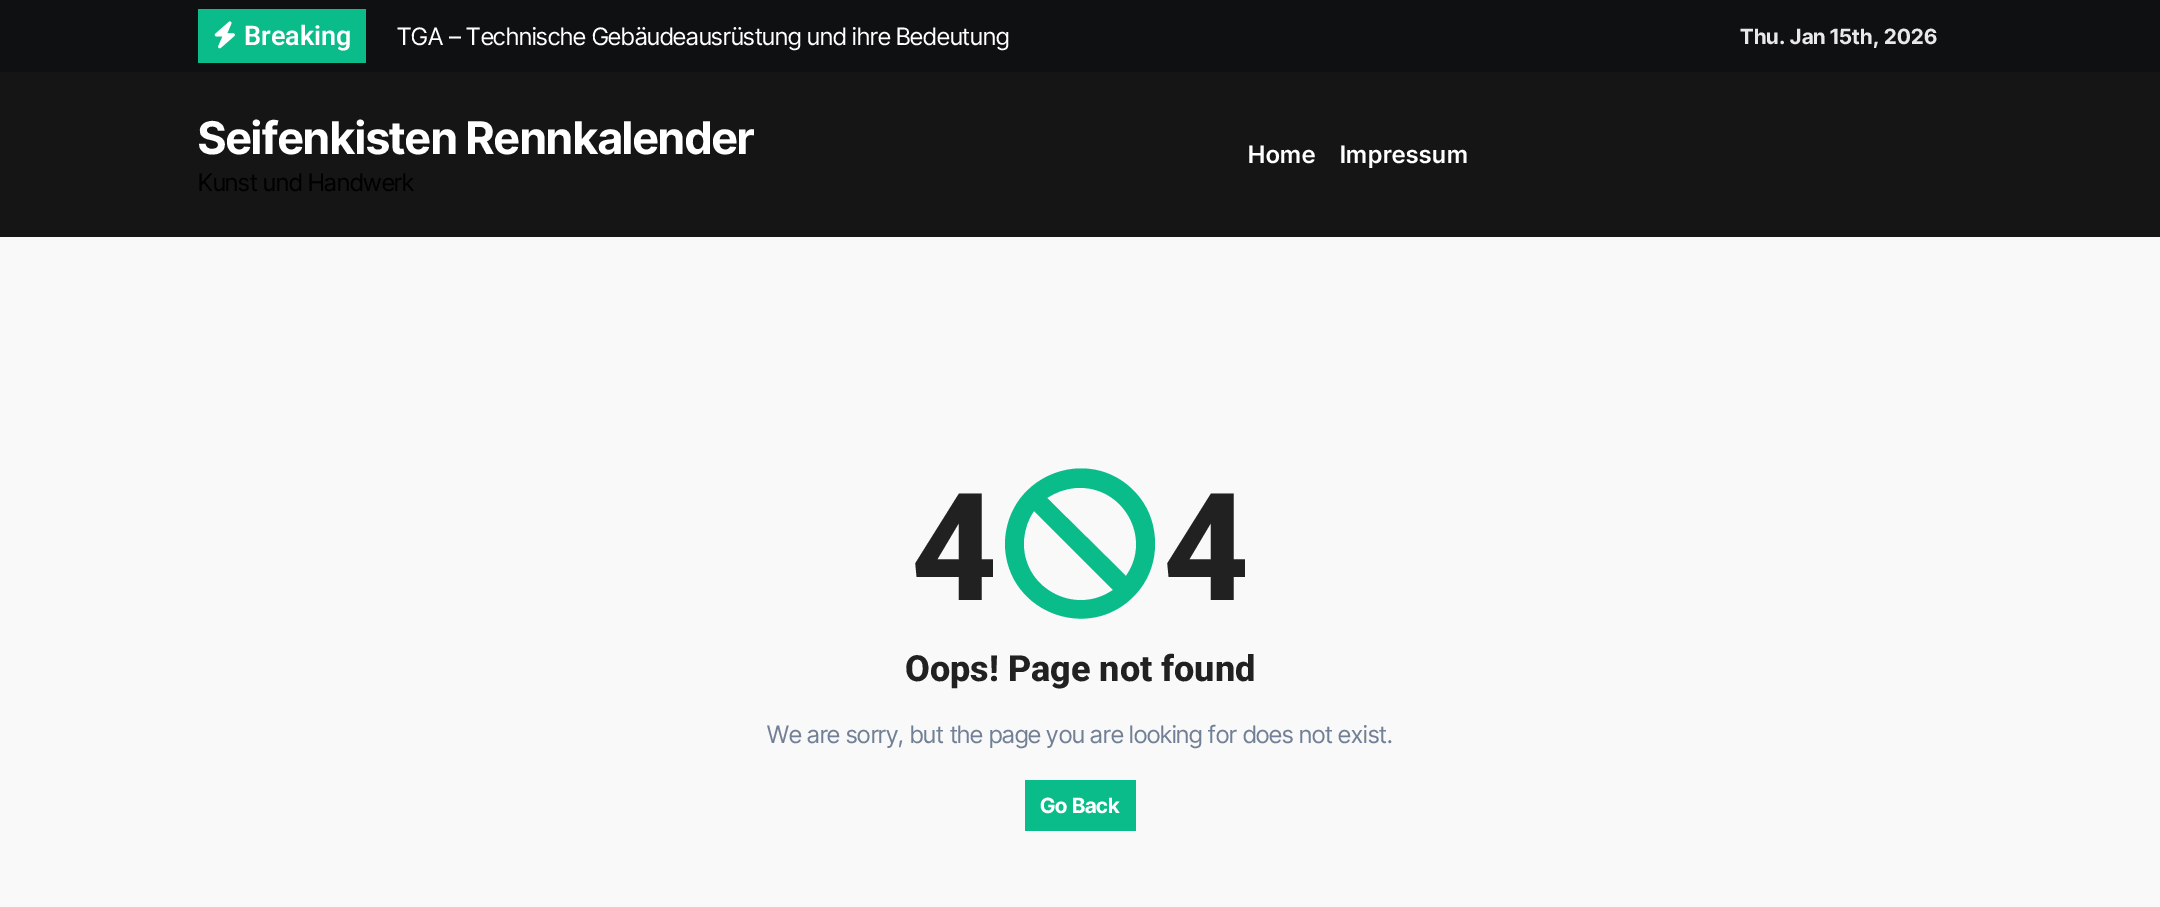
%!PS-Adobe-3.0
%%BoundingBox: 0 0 2160 907
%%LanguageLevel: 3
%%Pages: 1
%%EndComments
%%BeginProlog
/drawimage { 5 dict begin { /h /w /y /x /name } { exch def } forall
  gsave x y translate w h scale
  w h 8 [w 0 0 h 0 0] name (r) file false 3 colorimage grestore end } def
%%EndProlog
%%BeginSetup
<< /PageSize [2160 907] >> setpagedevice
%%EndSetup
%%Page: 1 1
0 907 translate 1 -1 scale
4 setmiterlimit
0.976 setgray
0 0 2160 907 rectfill
0.059 0.063 0.071 setrgbcolor
0 0 2160 72 rectfill
0.035 0.737 0.541 setrgbcolor
198 9 168 54 rectfill
(images/1.raw) 214 21 21 28 drawimage
0.082 setgray
0 72 2160 165 rectfill
0.035 0.737 0.541 setrgbcolor
newpath 1113 590 moveto 1034 511 lineto 1028 519 1025 529 1024 539 curveto 1020 587 1074 617 1113 590 curveto closepath 1126 576 moveto 1153 538 1123 484 1075 488 curveto 1065 489 1056 492 1047 498 curveto closepath 1005 544 moveto 1006 472 1096 441 1140 498 curveto 1150 511 1155 527 1155 544 curveto 1155 560 1150 576 1140 589 curveto 1096 646 1006 615 1005 544 curveto closepath fill
1025 780 111 51 rectfill
/Roboto-SemiBold [27 0 0 -27 0 0] selectfont
1 setgray
244 45 moveto (Breaking) show
/InterTight-Regular [24 0 0 -24 0 0] selectfont
397 45 moveto (TGA – Technische Gebäudeausrüstung und ihre Bedeutung) show
/InterTight-Bold [21 0 0 -21 0 0] selectfont
0.91 setgray
1740 44 moveto 0.25 0 (Thu. Jan 15th, 2026) ashow
/InterTight-Bold [45 0 0 -45 0 0] selectfont
1 setgray
198 154 moveto (Seifenkisten Rennkalender) show
/InterTight-Regular [24 0 0 -24 0 0] selectfont
0 setgray
198 191 moveto (Kunst und Handwerk) show
/InterTight-SemiBold [24 0 0 -24 0 0] selectfont
1 setgray
1248 163 moveto 0.75 0 (Home) ashow
1340 163 moveto 0.75 0 (Impressum) ashow
/Roboto-ExtraBold [150 0 0 -150 0 0] selectfont
0.129 setgray
911 600 moveto (4) show
1163 600 moveto (4) show
/Roboto-ExtraBold [36 0 0 -36 0 0] selectfont
905 681 moveto (Oops! Page not found) show
/InterTight-Regular [24 0 0 -24 0 0] selectfont
0.443 0.502 0.588 setrgbcolor
767 743 moveto (We are sorry, but the page you are looking for does not exist.) show
/InterTight-Bold [21 0 0 -21 0 0] selectfont
1 setgray
1040 813 moveto (Go Back) show
showpage
%%EOF
